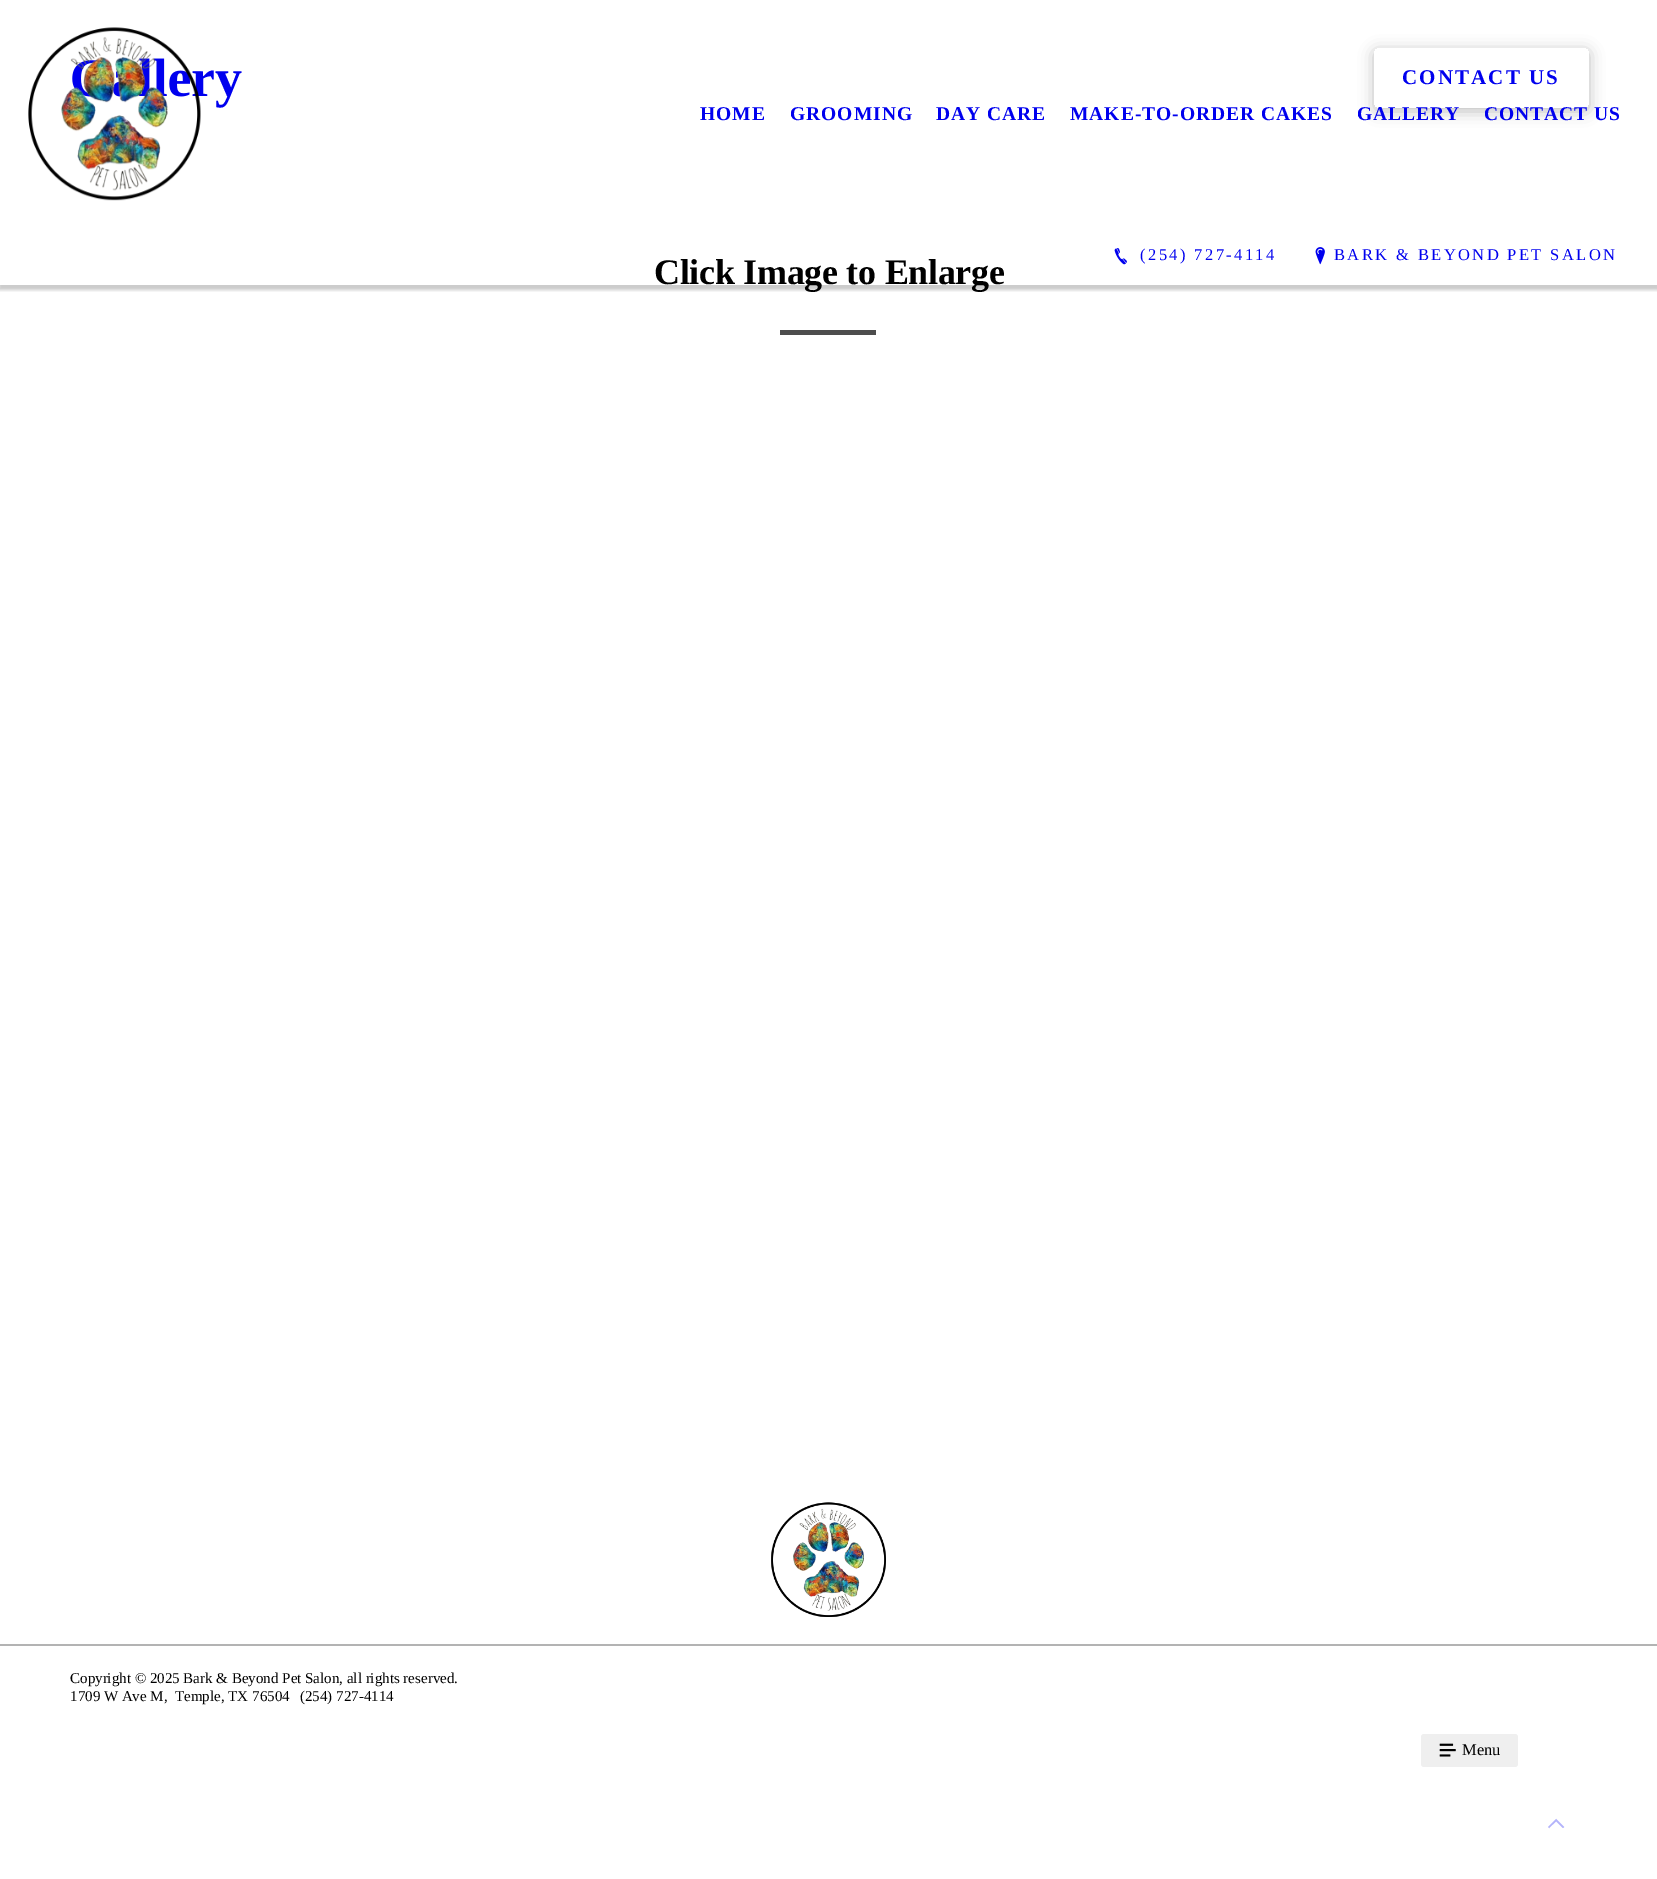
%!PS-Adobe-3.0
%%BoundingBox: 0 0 1657 1879
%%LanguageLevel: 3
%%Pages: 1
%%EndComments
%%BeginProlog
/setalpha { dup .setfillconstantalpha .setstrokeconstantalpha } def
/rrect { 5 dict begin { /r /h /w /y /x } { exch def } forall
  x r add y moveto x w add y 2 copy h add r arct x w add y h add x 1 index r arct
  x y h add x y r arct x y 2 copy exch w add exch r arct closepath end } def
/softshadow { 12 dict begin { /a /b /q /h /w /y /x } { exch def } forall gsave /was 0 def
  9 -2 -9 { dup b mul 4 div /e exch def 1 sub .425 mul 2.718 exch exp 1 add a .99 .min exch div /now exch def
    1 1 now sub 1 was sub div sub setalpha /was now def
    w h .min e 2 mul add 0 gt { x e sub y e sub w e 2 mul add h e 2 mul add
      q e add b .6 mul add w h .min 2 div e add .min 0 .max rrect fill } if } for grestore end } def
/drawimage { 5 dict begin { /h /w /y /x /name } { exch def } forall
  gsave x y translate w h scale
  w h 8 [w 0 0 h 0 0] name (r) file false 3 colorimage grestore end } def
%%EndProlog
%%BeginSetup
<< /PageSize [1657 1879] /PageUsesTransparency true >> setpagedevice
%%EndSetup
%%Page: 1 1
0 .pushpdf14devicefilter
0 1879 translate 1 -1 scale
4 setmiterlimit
1 setgray
0 0 1657 1879 rectfill
gsave
newpath 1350 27 moveto 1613 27 lineto 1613 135 lineto 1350 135 lineto closepath 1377 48 moveto 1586 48 lineto 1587.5 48 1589 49.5 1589 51 curveto 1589 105 lineto 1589 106.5 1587.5 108 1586 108 curveto 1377 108 lineto 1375.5 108 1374 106.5 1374 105 curveto 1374 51 lineto 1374 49.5 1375.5 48 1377 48 curveto closepath eoclip newpath
0 setgray
1374 51 215 60 3 7.5 0.25 softshadow
grestore
0.302 setgray
780 330 96 5 rectfill
gsave
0 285 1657 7 rectclip
0 setgray
-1 230 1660 60 0 1.5 0.2 softshadow
grestore
(images/2.raw) 1114 248 13 17 drawimage
(images/3.raw) 1315 247 10 18 drawimage
(images/4.raw) 771 1502 115 115 drawimage
0.702 setgray
0 1644 1657 2 rectfill
0.937 setgray
1421 1734 97 33 3 rrect fill
(images/5.raw) 1439 1743 17 14 drawimage
/LiberationSerif-Bold [54 0 0 -54 0 0] selectfont
0 0 0.933 setrgbcolor
70 96 moveto -0.3 0 (Gallery) ashow
/LiberationSerif-Bold [21 0 0 -21 0 0] selectfont
1402 84 moveto 2.1 0 (CONTACT US) ashow
/LiberationSerif-Bold [36 0 0 -36 0 0] selectfont
0 setgray
654 284 moveto -0.3 0 (Click Image to Enlarge) ashow
(images/1.raw) 28 27 173 174 drawimage
/LiberationSerif-Bold [19.5 0 0 -19.5 0 0] selectfont
0 0 0.933 setrgbcolor
700 120 moveto 1 0 (HOME) ashow
790 120 moveto 1 0 (GROOMING) ashow
936 120 moveto 1 0 (DAY CARE) ashow
1070 120 moveto 1 0 (MAKE-TO-ORDER CAKES) ashow
1357 120 moveto 1 0 (GALLERY) ashow
1484 120 moveto 1 0 (CONTACT US) ashow
/LiberationSerif-Regular [16.5 0 0 -16.5 0 0] selectfont
1140 260 moveto 2.4 0 (\(254\) 727-4114) ashow
1334 260 moveto 2.4 0 (BARK & BEYOND PET SALON) ashow
/LiberationSerif-Regular [15 0 0 -15 0 0] selectfont
0 setgray
70 1683 moveto (Copyright © 2025 Bark & Beyond Pet Salon, all rights reserved.) show
70 1701 moveto (1709 W Ave M,) show
175 1701 moveto (Temple, TX 76504) show
300 1701 moveto (\(254\) 727-4114) show
/LiberationSerif-Regular [16.5 0 0 -16.5 0 0] selectfont
1462 1755 moveto (Menu) show
/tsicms-Regular [21 0 0 -21 0 0] selectfont
0.702 0.702 0.98 setrgbcolor
1548 1832 moveto (+) show
.poppdf14devicefilter showpage
%%EOF
